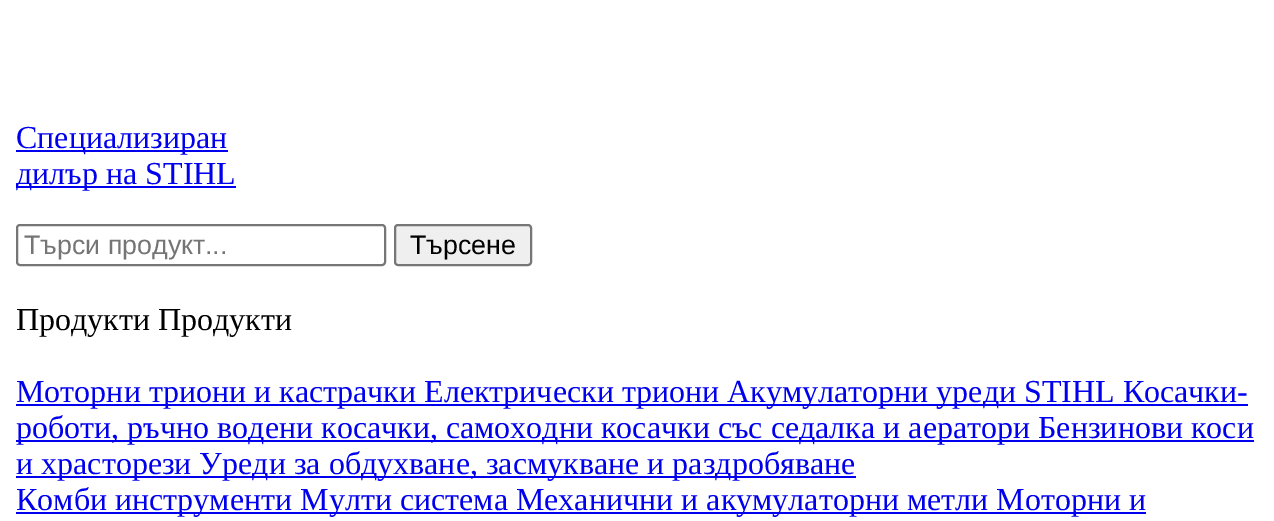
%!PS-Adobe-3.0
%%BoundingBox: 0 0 1274 521
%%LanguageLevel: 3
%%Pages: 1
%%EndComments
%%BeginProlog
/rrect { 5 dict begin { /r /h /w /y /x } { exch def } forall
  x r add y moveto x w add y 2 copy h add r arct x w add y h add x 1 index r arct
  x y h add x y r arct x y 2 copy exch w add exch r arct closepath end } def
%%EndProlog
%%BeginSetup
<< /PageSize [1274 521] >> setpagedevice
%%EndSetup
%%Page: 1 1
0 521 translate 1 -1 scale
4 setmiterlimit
1 setgray
0 0 1274 521 rectfill
0 0 0.933 setrgbcolor
16 150 212 2 rectfill
16 186 220 2 rectfill
0.463 setgray
2 setlinewidth
17 225 368 40 3 rrect stroke
0.937 setgray
395 225 136 40 3 rrect gsave fill grestore
0.463 setgray
stroke
0 0 0.933 setrgbcolor
16 404 1232 2 rectfill
16 440 1238 2 rectfill
16 476 840 2 rectfill
16 512 1130 2 rectfill
/LiberationSerif-Regular [32 0 0 -32 0 0] selectfont
16 148 moveto (Специализиран) show
16 184 moveto (дилър на STIHL) show
/LiberationSans-Regular [26.75 0 0 -26.75 0 0] selectfont
0.459 setgray
24 254 moveto (Търси продукт...) show
0 setgray
410 254 moveto (Търсене) show
/LiberationSerif-Regular [32 0 0 -32 0 0] selectfont
16 330 moveto (Продукти Продукти) show
0 0 0.933 setrgbcolor
16 402 moveto (Моторни триони и кастрачки Електрически триони Акумулаторни уреди STIHL Косачки-) show
16 438 moveto (роботи, ръчно водени косачки, самоходни косачки със седалка и аератори Бензинови коси) show
16 474 moveto (и храсторези Уреди за обдухване, засмукване и раздробяване) show
16 510 moveto (Комби инструменти Мулти система Механични и акумулаторни метли Моторни и) show
showpage
%%EOF
